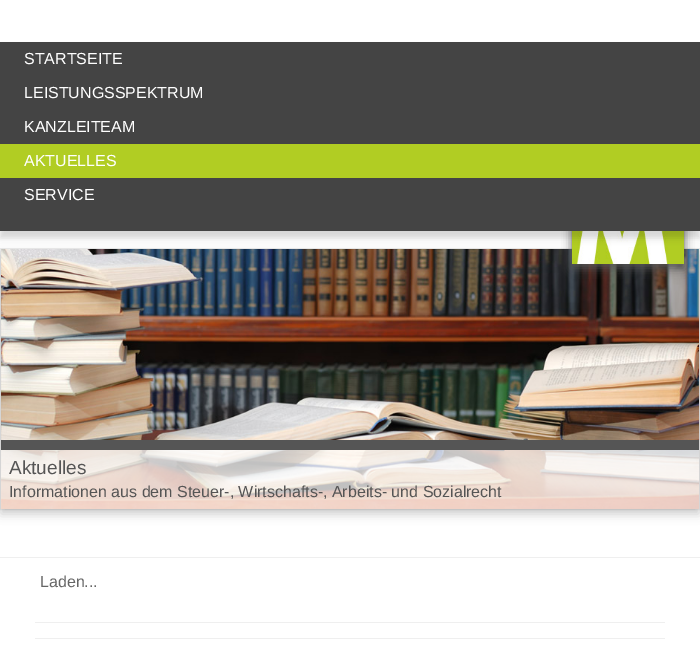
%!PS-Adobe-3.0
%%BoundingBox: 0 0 700 654
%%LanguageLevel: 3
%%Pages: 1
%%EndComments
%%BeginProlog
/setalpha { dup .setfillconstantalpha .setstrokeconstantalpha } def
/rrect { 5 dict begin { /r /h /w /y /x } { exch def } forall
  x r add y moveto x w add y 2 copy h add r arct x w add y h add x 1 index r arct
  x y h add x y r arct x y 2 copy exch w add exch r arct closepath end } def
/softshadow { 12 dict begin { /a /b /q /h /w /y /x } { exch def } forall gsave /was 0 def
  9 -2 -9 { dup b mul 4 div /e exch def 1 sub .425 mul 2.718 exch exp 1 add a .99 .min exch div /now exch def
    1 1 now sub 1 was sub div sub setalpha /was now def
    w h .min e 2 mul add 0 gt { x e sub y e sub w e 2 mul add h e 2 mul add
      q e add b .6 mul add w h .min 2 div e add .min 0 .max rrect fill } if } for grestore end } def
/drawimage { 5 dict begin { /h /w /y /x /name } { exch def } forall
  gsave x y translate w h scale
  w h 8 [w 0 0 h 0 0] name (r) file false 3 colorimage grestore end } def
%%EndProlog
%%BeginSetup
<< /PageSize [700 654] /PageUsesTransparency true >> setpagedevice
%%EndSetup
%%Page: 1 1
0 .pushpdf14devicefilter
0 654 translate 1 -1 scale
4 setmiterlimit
1 setgray
0 0 700 654 rectfill
0.933 setgray
0.5 248.5 699 261 rectstroke
0 setgray
1 254 698 260 0 5 0.2 softshadow
(images/2.raw) 1 249 698 260 drawimage
0.333 setgray
572 156 112 112 0 5 1 softshadow
(images/1.raw) 572 231 112 33 drawimage
0 setgray
0 49 700 189 0 3.5 0.16 softshadow
0.267 setgray
0 42 700 189 rectfill
0.694 0.804 0.137 setrgbcolor
0 144 700 34 rectfill
0.75 setalpha
1 setgray
1 450 698 59 rectfill
1 setalpha
0.333 setgray
1 440 698 10 rectfill
0.937 setgray
0 557 700 1 rectfill
35 622 630 1 rectfill
35 638 630 1 rectfill
/LiberationSans-Regular [16 0 0 -16 0 0] selectfont
1 setgray
24 64 moveto (STARTSEITE) show
24 98 moveto (LEISTUNGSSPEKTRUM) show
24 132 moveto (KANZLEITEAM) show
24 166 moveto (AKTUELLES) show
24 200 moveto (SERVICE) show
/LiberationSans-Regular [19 0 0 -19 0 0] selectfont
0.333 setgray
9 474 moveto (Aktuelles) show
/LiberationSans-Regular [16 0 0 -16 0 0] selectfont
9 497 moveto (Informationen aus dem Steuer-, Wirtschafts-, Arbeits- und Sozialrecht) show
0.4 setgray
40 587 moveto (Laden...) show
.poppdf14devicefilter showpage
%%EOF
